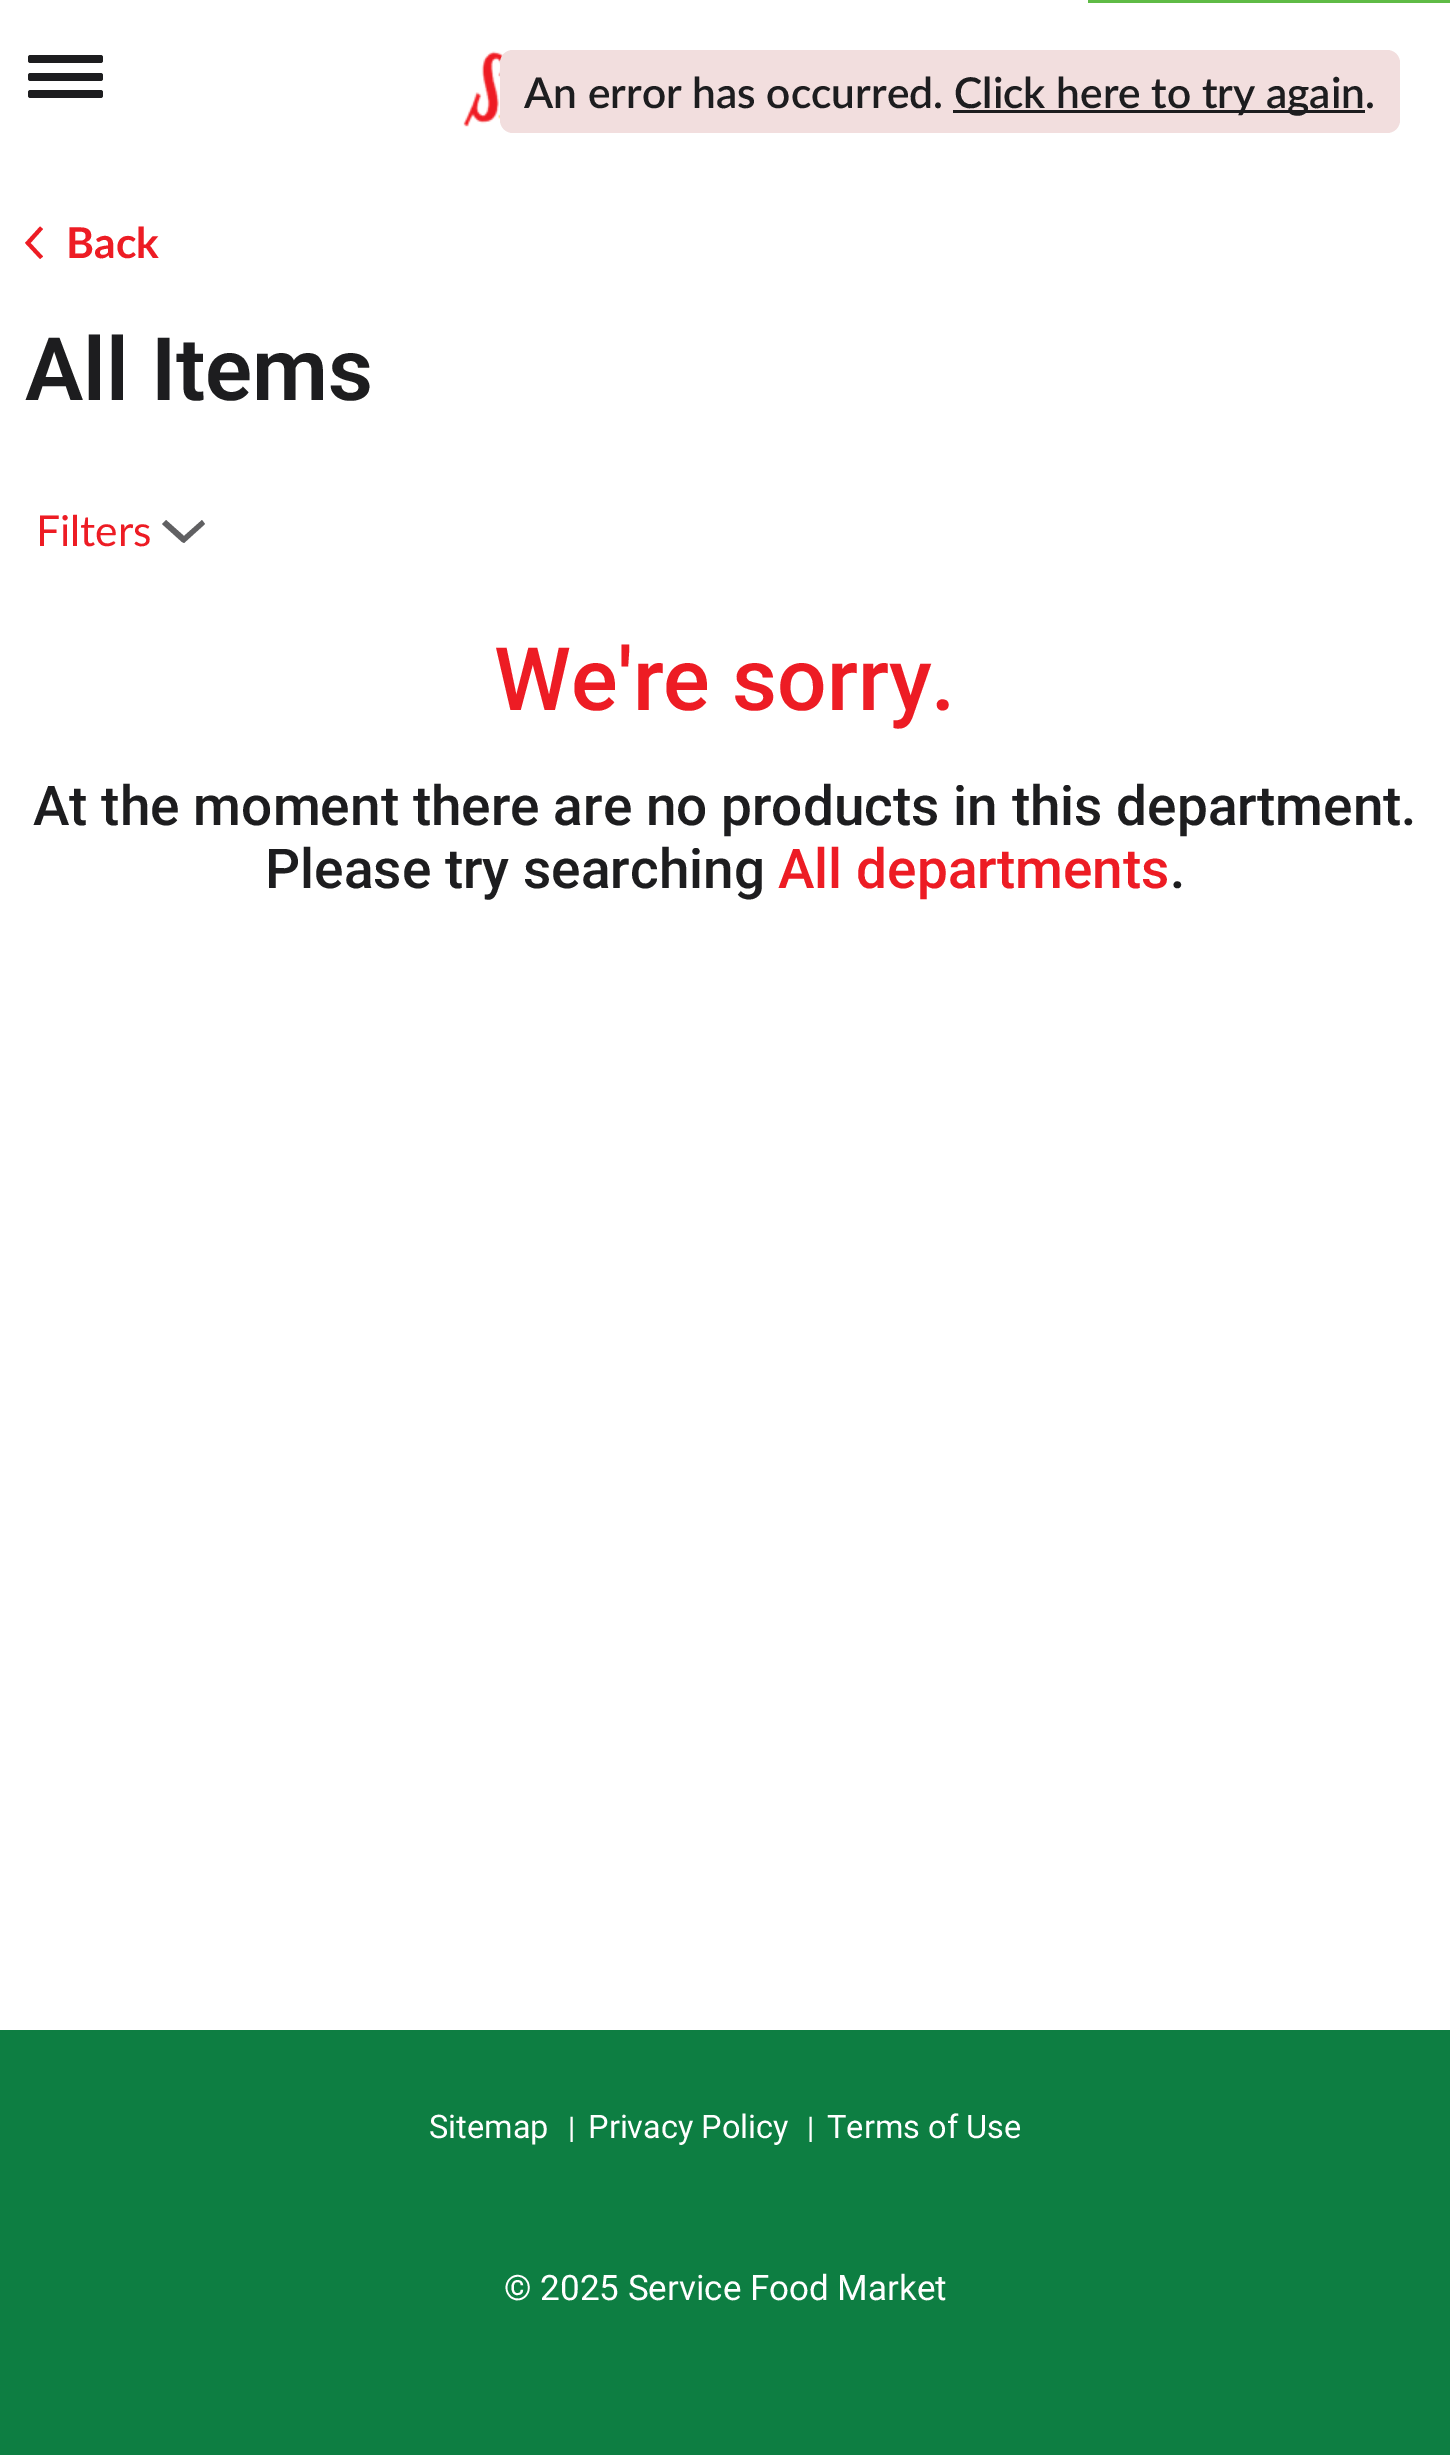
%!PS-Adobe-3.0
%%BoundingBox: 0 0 1450 2455
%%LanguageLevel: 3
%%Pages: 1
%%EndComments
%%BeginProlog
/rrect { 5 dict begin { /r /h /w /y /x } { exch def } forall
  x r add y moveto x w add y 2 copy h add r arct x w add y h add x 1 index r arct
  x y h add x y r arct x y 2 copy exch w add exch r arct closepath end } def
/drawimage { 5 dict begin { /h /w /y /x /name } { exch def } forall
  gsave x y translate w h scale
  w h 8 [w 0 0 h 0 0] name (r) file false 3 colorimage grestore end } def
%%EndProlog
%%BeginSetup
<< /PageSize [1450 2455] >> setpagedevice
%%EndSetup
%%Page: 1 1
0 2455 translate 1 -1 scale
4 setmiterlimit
1 setgray
0 0 1450 2455 rectfill
(images/1.raw) 463 51 45 76 drawimage
0.949 0.871 0.871 setrgbcolor
500 50 900 83 13 rrect fill
0.114 0.114 0.122 setrgbcolor
953 110 412 3 rectfill
0.373 0.733 0.275 setrgbcolor
1088 0 362 3 rectfill
0.114 0.114 0.122 setrgbcolor
28 55 75 8 2.5 rrect fill
28 73 75 8 2.5 rrect fill
28 90 75 8 2.5 rrect fill
0.929 0.11 0.141 setrgbcolor
newpath 26 244 moveto 25 243 lineto 40 226.5 lineto 43 229 lineto 30.5 243 lineto 43 256.5 lineto 40 259 lineto closepath fill
0.376 0.376 0.384 setrgbcolor
newpath 182 542 moveto 162 524 lineto 166 520 lineto 184 536 lineto 202 520 lineto 205 524 lineto 184 543 lineto closepath fill
0.051 0.494 0.259 setrgbcolor
0 2030 1450 425 rectfill
/Lato-SemiBold [42.5 0 0 -42.5 0 0] selectfont
0.114 0.114 0.122 setrgbcolor
524 108 moveto (An error has occurred.) show
954 108 moveto (Click here to try again.) show
/Lato-Bold [42.5 0 0 -42.5 0 0] selectfont
0.929 0.11 0.141 setrgbcolor
66 258 moveto (Back) show
/Roboto-SemiBold [87.5 0 0 -87.5 0 0] selectfont
0.114 0.114 0.122 setrgbcolor
25 400 moveto (All Items) show
/Lato-Regular [42.5 0 0 -42.5 0 0] selectfont
0.929 0.11 0.141 setrgbcolor
36 546 moveto (Filters) show
/Roboto-Medium [87.5 0 0 -87.5 0 0] selectfont
494 710 moveto (We're sorry.) show
/Roboto-Medium [55 0 0 -55 0 0] selectfont
0.114 0.114 0.122 setrgbcolor
33 825 moveto (At the moment there are no products in this department.) show
265 888 moveto (Please try searching) show
0.929 0.11 0.141 setrgbcolor
778 888 moveto (All departments) show
0.114 0.114 0.122 setrgbcolor
1170 888 moveto (.) show
/Roboto-Regular [32.5 0 0 -32.5 0 0] selectfont
1 setgray
429 2138 moveto (Sitemap) show
/Roboto-Regular [30 0 0 -30 0 0] selectfont
568 2138 moveto (|) show
/Roboto-Regular [32.5 0 0 -32.5 0 0] selectfont
588 2138 moveto (Privacy Policy) show
/Roboto-Regular [30 0 0 -30 0 0] selectfont
807 2138 moveto (|) show
/Roboto-Regular [32.5 0 0 -32.5 0 0] selectfont
827 2138 moveto (Terms of Use) show
/Roboto-Regular [35 0 0 -35 0 0] selectfont
504 2300 moveto (© 2025 Service Food Market) show
showpage
%%EOF
